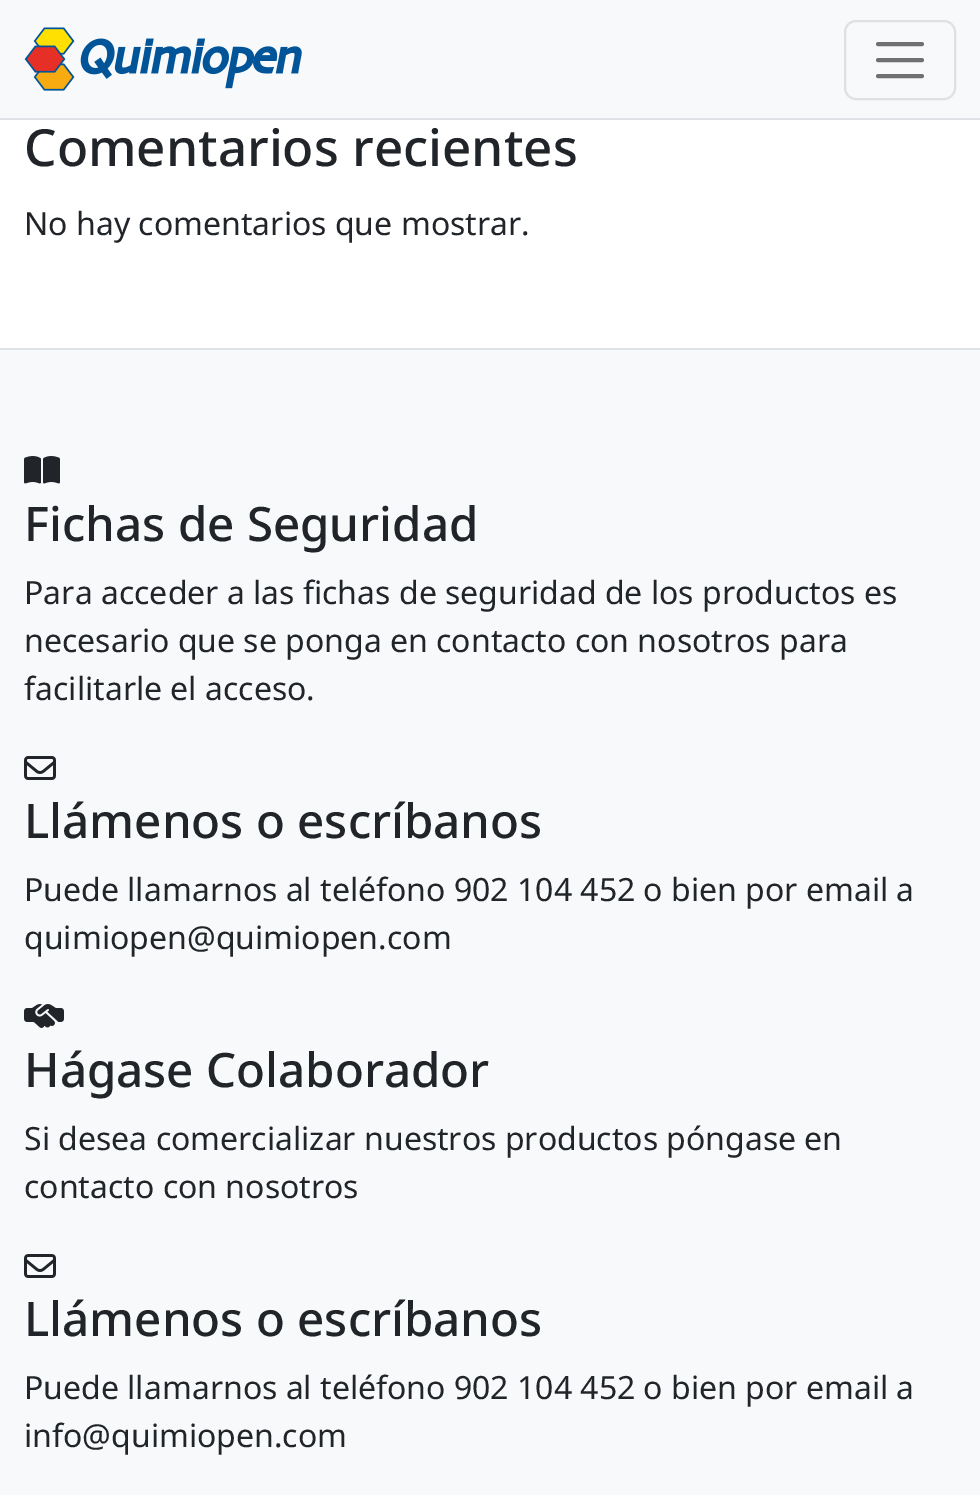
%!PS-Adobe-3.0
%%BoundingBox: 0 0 980 1495
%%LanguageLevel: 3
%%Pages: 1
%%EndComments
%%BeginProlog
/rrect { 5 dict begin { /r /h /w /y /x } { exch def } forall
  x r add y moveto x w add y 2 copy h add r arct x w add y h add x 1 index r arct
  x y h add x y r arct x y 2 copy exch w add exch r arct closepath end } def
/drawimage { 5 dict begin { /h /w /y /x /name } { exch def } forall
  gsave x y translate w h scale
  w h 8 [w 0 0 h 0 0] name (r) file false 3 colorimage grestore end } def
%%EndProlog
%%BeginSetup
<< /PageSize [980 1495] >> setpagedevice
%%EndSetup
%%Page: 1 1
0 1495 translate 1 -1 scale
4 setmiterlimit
1 setgray
0 0 980 1495 rectfill
0.973 0.976 0.98 setrgbcolor
0 0 980 118 rectfill
0.871 0.886 0.902 setrgbcolor
0 118 980 2 rectfill
(images/1.raw) 24 27 278 64 drawimage
0.875 0.878 0.882 setrgbcolor
2 setlinewidth
845 21 110 78 11 rrect stroke
0.439 0.439 0.443 setrgbcolor
4 setlinewidth
1 setlinecap
newpath 878 44 moveto 922 44 lineto 878 60 moveto 922 60 lineto 878 76 moveto 922 76 lineto stroke
0.973 0.976 0.98 setrgbcolor
0 350 980 1145 rectfill
0.871 0.886 0.902 setrgbcolor
0 348 980 2 rectfill
(images/2.raw) 24 456 36 28 drawimage
(images/3.raw) 24 756 32 24 drawimage
(images/4.raw) 24 1004 40 24 drawimage
(images/3.raw) 24 1254 32 24 drawimage
/NotoSans-Medium [51.25 0 0 -51.25 0 0] selectfont
0.129 0.145 0.161 setrgbcolor
24 166 moveto (Comentarios recientes) show
/NotoSans-Regular [32 0 0 -32 0 0] selectfont
24 235 moveto (No hay comentarios que mostrar.) show
/NotoSans-Medium [47.5 0 0 -47.5 0 0] selectfont
24 541 moveto (Fichas de Seguridad) show
/NotoSans-Regular [32 0 0 -32 0 0] selectfont
24 604 moveto (Para acceder a las fichas de seguridad de los productos es) show
24 652 moveto (necesario que se ponga en contacto con nosotros para) show
24 700 moveto (facilitarle el acceso.) show
/NotoSans-Medium [47.5 0 0 -47.5 0 0] selectfont
24 838 moveto (Llámenos o escríbanos) show
/NotoSans-Regular [32 0 0 -32 0 0] selectfont
24 901 moveto (Puede llamarnos al teléfono 902 104 452 o bien por email a) show
24 949 moveto (quimiopen@quimiopen.com) show
/NotoSans-Medium [47.5 0 0 -47.5 0 0] selectfont
24 1087 moveto (Hágase Colaborador) show
/NotoSans-Regular [32 0 0 -32 0 0] selectfont
24 1150 moveto (Si desea comercializar nuestros productos póngase en) show
24 1198 moveto (contacto con nosotros) show
/NotoSans-Medium [47.5 0 0 -47.5 0 0] selectfont
24 1336 moveto (Llámenos o escríbanos) show
/NotoSans-Regular [32 0 0 -32 0 0] selectfont
24 1399 moveto (Puede llamarnos al teléfono 902 104 452 o bien por email a) show
24 1447 moveto (info@quimiopen.com) show
showpage
%%EOF
